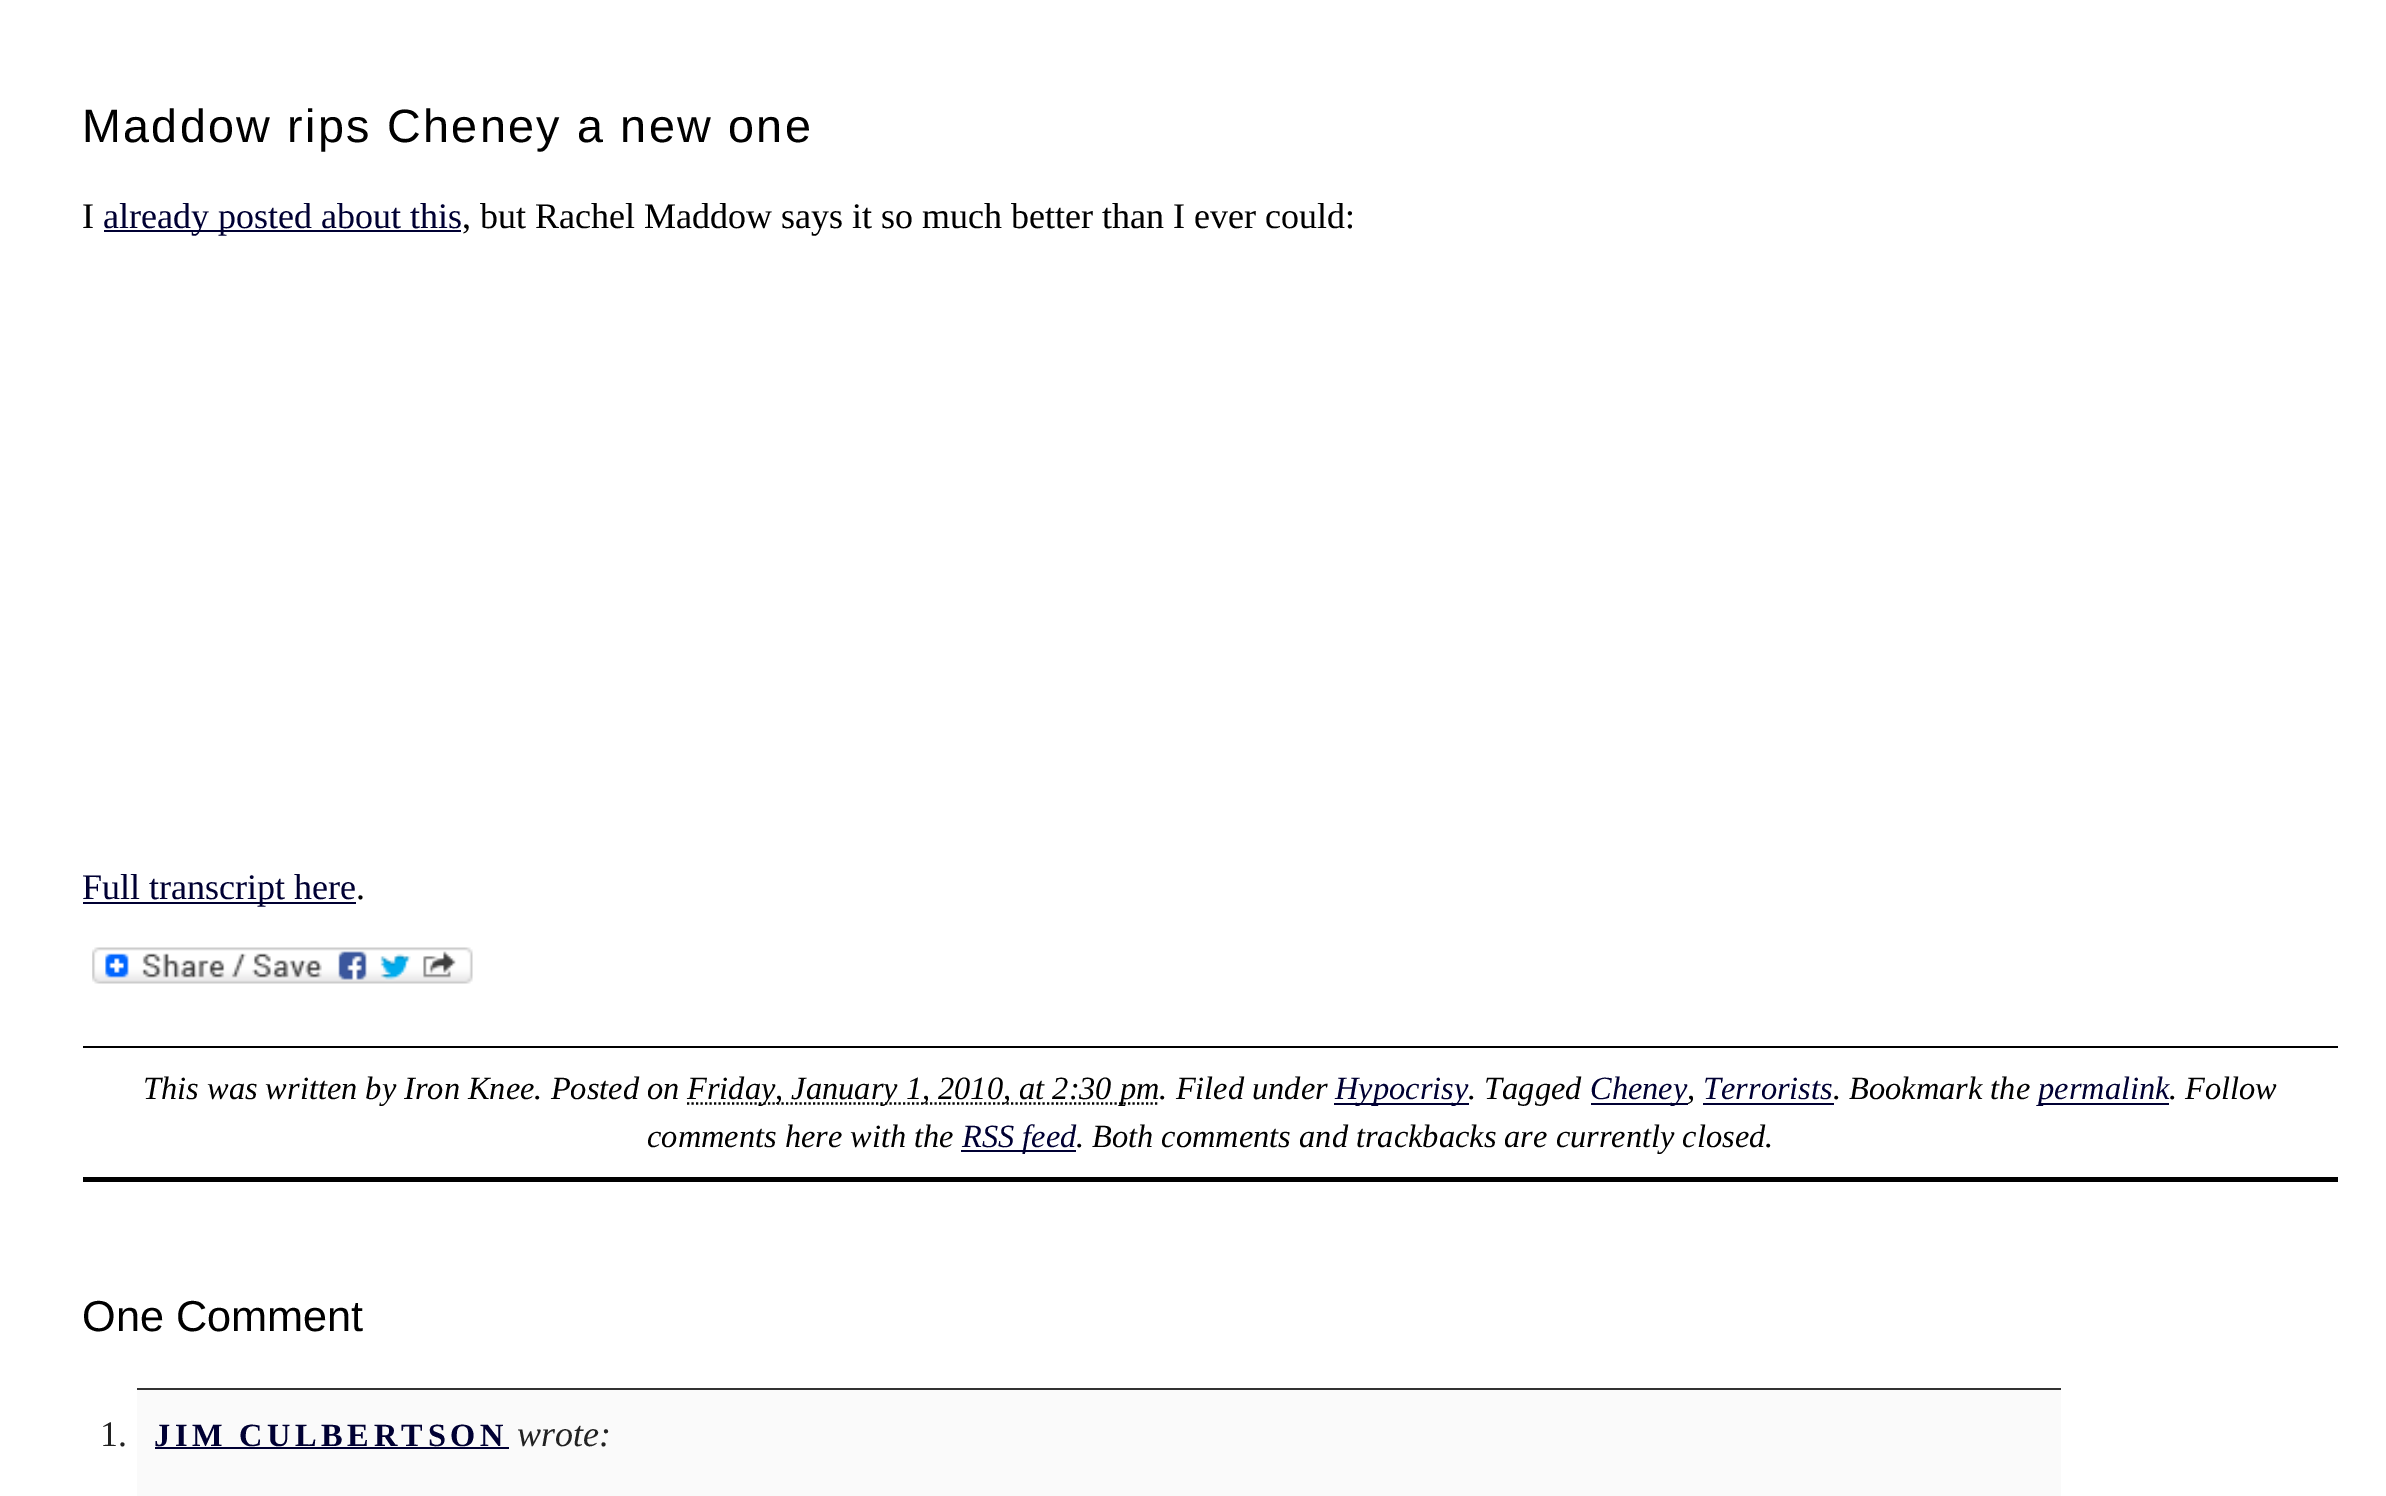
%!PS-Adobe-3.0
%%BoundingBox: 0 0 2386 1496
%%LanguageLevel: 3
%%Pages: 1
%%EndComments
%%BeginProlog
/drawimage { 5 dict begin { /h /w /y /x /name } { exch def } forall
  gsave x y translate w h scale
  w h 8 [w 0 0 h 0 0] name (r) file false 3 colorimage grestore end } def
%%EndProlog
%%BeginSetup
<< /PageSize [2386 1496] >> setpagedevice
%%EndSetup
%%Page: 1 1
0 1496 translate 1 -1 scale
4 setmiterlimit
1 setgray
0 0 2386 1496 rectfill
0 0 0.2 setrgbcolor
104 230 357 2 rectfill
83 902 273 2 rectfill
(images/1.raw) 92 947 381 37 drawimage
0 setgray
83 1046 2255 2 rectfill
83 1177 2255 5 rectfill
2.2 setlinewidth
[2.25 2.25] 0 setdash
newpath 687 1103.5 moveto 1159 1103.5 lineto stroke
0 0 0.2 setrgbcolor
1334 1103 135 2 rectfill
1591 1103 97 2 rectfill
1703 1103 131 2 rectfill
2039 1103 130 2 rectfill
961 1150 115 2 rectfill
0.98 setgray
137 1390 1924 106 rectfill
0.2 setgray
137 1388 1924 2 rectfill
0 0 0.2 setrgbcolor
155 1447 354 2 rectfill
/LiberationSans-Regular [46.75 0 0 -46.75 0 0] selectfont
0 setgray
82 142 moveto 2.25 0 (Maddow rips Cheney a new one) ashow
/LiberationSerif-Regular [36 0 0 -36 0 0] selectfont
82 228 moveto (I) show
0 0 0.2 setrgbcolor
103 228 moveto (already posted about this) show
0 setgray
462 228 moveto (, but Rachel Maddow says it so much better than I ever could:) show
0 0 0.2 setrgbcolor
82 899 moveto (Full transcript here) show
0 setgray
356 899 moveto (.) show
/LiberationSerif-Italic [32.4 0 0 -32.4 0 0] selectfont
143 1099 moveto (This was written by Iron Knee. Posted on) show
687 1099 moveto (Friday, January 1, 2010, at 2:30 pm. Filed under) show
0 0 0.2 setrgbcolor
1335 1099 moveto (Hypocrisy) show
0 setgray
1468 1099 moveto (. Tagged) show
0 0 0.2 setrgbcolor
1590 1099 moveto (Cheney) show
0 setgray
1687 1099 moveto (,) show
0 0 0.2 setrgbcolor
1703 1099 moveto (Terrorists) show
0 setgray
1833 1099 moveto (. Bookmark the) show
0 0 0.2 setrgbcolor
2038 1099 moveto (permalink) show
0 setgray
2169 1099 moveto (. Follow) show
647 1147 moveto (comments here with the) show
0 0 0.2 setrgbcolor
962 1147 moveto (RSS feed) show
0 setgray
1076 1147 moveto (. Both comments and trackbacks are currently closed.) show
/LiberationSans-Regular [43.25 0 0 -43.25 0 0] selectfont
82 1331 moveto (One Comment) show
/LiberationSerif-Regular [36 0 0 -36 0 0] selectfont
0.133 setgray
100 1446 moveto (1.) show
/LiberationSerif-Bold [32.4 0 0 -32.4 0 0] selectfont
0 0 0.2 setrgbcolor
154 1446 moveto 4.5 0 (JIM CULBERTSON) ashow
/LiberationSerif-Italic [36 0 0 -36 0 0] selectfont
0.133 setgray
517 1446 moveto (wrote:) show
showpage
%%EOF
